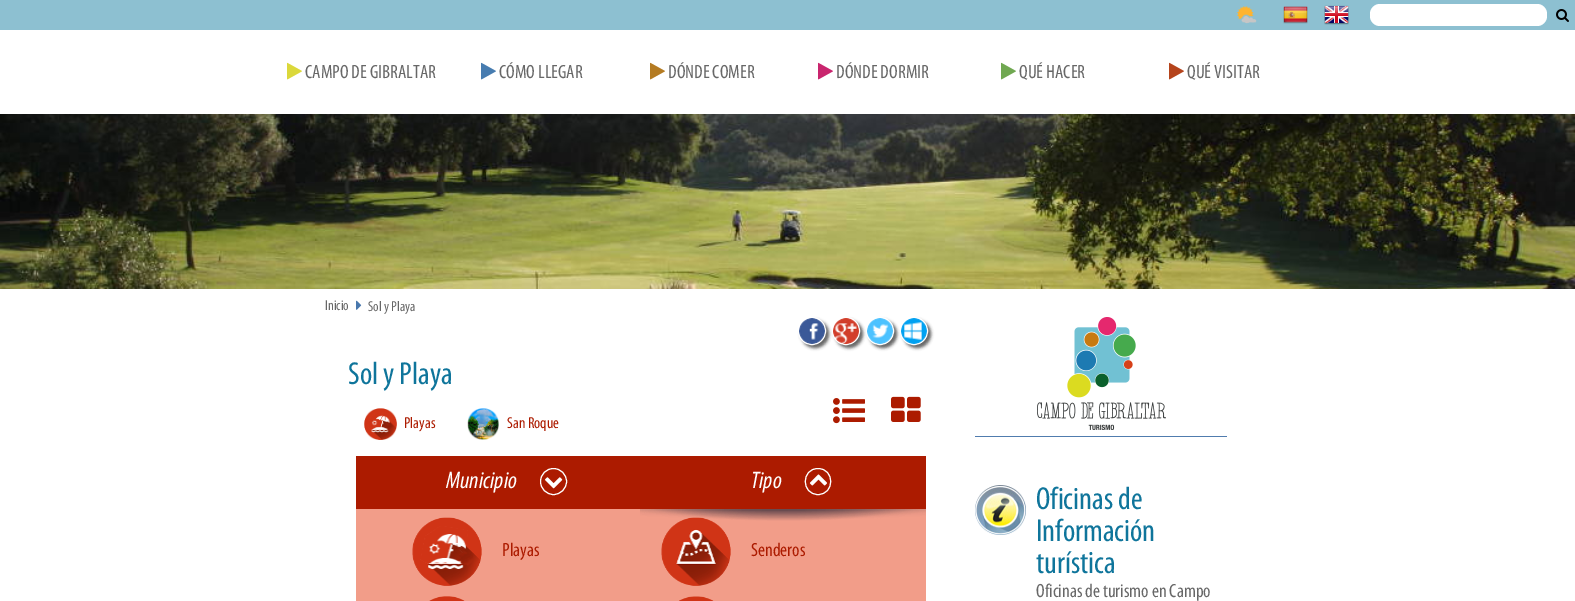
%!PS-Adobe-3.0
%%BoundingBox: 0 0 1575 601
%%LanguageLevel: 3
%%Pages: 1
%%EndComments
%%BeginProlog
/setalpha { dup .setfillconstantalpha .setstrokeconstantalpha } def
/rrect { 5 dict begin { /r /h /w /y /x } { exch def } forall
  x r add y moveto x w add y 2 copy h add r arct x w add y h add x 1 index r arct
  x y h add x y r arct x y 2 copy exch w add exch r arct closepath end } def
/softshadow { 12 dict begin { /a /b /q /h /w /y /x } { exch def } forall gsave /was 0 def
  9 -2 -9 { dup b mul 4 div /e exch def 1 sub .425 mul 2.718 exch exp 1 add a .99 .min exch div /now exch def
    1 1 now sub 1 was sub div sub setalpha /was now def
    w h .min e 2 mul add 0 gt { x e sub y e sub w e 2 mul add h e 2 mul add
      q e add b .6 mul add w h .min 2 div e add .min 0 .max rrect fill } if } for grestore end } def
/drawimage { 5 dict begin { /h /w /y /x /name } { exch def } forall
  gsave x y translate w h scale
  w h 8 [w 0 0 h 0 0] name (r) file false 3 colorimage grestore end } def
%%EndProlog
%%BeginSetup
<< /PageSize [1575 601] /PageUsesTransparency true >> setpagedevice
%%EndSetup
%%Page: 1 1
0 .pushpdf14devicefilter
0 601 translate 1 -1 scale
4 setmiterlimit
1 setgray
0 0 1575 601 rectfill
0.553 0.753 0.82 setrgbcolor
0 0 1575 30 rectfill
(images/1.raw) 1236 6 21 18 drawimage
(images/2.raw) 1283 6 25 18 drawimage
(images/3.raw) 1324 5 25 20 drawimage
1 setgray
1370 4 177 22 10 rrect fill
(images/4.raw) 1556 9 13 13 drawimage
(images/5.raw) 287 62 15 18 drawimage
(images/6.raw) 481 62 15 18 drawimage
(images/7.raw) 650 62 15 18 drawimage
(images/8.raw) 818 62 15 18 drawimage
(images/9.raw) 1001 62 15 18 drawimage
(images/10.raw) 1169 62 15 18 drawimage
(images/11.raw) 0 114 1575 175 drawimage
(images/12.raw) 356 300 6 10 drawimage
gsave
newpath 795 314 moveto 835 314 lineto 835 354 lineto 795 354 lineto closepath 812 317 moveto 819.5 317 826 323.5 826 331 curveto 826 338.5 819.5 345 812 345 curveto 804.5 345 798 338.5 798 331 curveto 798 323.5 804.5 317 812 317 curveto closepath eoclip newpath
0.4 setgray
801 320 28 28 14 1.5 1 softshadow
grestore
newpath 812 331 13.5 0 360 arc closepath stroke
(images/13.raw) 799 318 26 26 drawimage
gsave
newpath 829 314 moveto 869 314 lineto 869 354 lineto 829 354 lineto closepath 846 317 moveto 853.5 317 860 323.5 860 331 curveto 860 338.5 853.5 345 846 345 curveto 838.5 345 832 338.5 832 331 curveto 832 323.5 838.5 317 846 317 curveto closepath eoclip newpath
0.4 setgray
835 320 28 28 14 1.5 1 softshadow
grestore
newpath 846 331 13.5 0 360 arc closepath stroke
(images/14.raw) 833 318 26 26 drawimage
gsave
newpath 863 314 moveto 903 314 lineto 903 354 lineto 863 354 lineto closepath 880 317 moveto 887.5 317 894 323.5 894 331 curveto 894 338.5 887.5 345 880 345 curveto 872.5 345 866 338.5 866 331 curveto 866 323.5 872.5 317 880 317 curveto closepath eoclip newpath
0.4 setgray
869 320 28 28 14 1.5 1 softshadow
grestore
newpath 880 331 13.5 0 360 arc closepath stroke
(images/15.raw) 867 318 26 26 drawimage
gsave
newpath 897 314 moveto 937 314 lineto 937 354 lineto 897 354 lineto closepath 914 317 moveto 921.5 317 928 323.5 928 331 curveto 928 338.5 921.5 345 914 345 curveto 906.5 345 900 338.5 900 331 curveto 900 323.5 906.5 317 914 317 curveto closepath eoclip newpath
0.4 setgray
903 320 28 28 14 1.5 1 softshadow
grestore
newpath 914 331 13.5 0 360 arc closepath stroke
(images/16.raw) 901 318 26 26 drawimage
(images/17.raw) 364 408 33 32 drawimage
(images/18.raw) 467 408 32 32 drawimage
(images/19.raw) 833 398 32 26 drawimage
(images/20.raw) 891 396 30 26 drawimage
0.675 0.106 0 setrgbcolor
356 456 570 53 rectfill
1 setgray
newpath 553.5 481.5 13 0 360 arc closepath stroke
(images/21.raw) 545 477 18 12 drawimage
newpath 818 494.5 moveto 801 494.5 801 468.5 818 468.5 curveto 835 468.5 835 494.5 818 494.5 curveto closepath stroke
(images/22.raw) 809 474 18 12 drawimage
0.949 0.616 0.537 setrgbcolor
356 509 570 92 rectfill
(images/23.raw) 640 509 286 12 drawimage
(images/24.raw) 412 517 70 69 drawimage
(images/25.raw) 661 517 70 69 drawimage
(images/26.raw) 429 596 36 5 drawimage
(images/27.raw) 679 596 35 5 drawimage
0.314 0.486 0.682 setrgbcolor
975 436 252 1 rectfill
(images/28.raw) 1037 317 129 113 drawimage
(images/29.raw) 975 485 51 50 drawimage
/Myriad-Regular [19.25 0 0 -19.25 0 0] selectfont
0.404 setgray
305 78 moveto (CAMPO DE GIBRALTAR) show
499 78 moveto (CÓMO LLEGAR) show
668 78 moveto (DÓNDE COMER) show
836 78 moveto (DÓNDE DORMIR) show
1019 78 moveto (QUÉ HACER) show
1187 78 moveto (QUÉ VISITAR) show
/Myriad-Regular [14.5 0 0 -14.5 0 0] selectfont
325 310 moveto (Inicio) show
368 311 moveto (Sol y Playa) show
/Myriad-Regular [32 0 0 -32 0 0] selectfont
0.059 0.459 0.608 setrgbcolor
348 384 moveto (Sol y Playa) show
/Myriad-Regular [16 0 0 -16 0 0] selectfont
0.675 0.106 0 setrgbcolor
404 428 moveto (Playas) show
507 428 moveto (San Roque) show
/Myriad-Italic [24 0 0 -24 0 0] selectfont
1 setgray
446 488 moveto (Municipio) show
751 488 moveto (Tipo) show
/Myriad-Regular [19.25 0 0 -19.25 0 0] selectfont
0.675 0.106 0 setrgbcolor
502 556 moveto (Playas) show
751 556 moveto (Senderos) show
/Myriad-Regular [32 0 0 -32 0 0] selectfont
0.059 0.459 0.608 setrgbcolor
1036 509 moveto (Oficinas de) show
1036 541 moveto (Información) show
1036 573 moveto (turística) show
/Myriad-Regular [19.25 0 0 -19.25 0 0] selectfont
0.404 setgray
1036 597 moveto (Oficinas de turismo en Campo) show
.poppdf14devicefilter showpage
%%EOF
